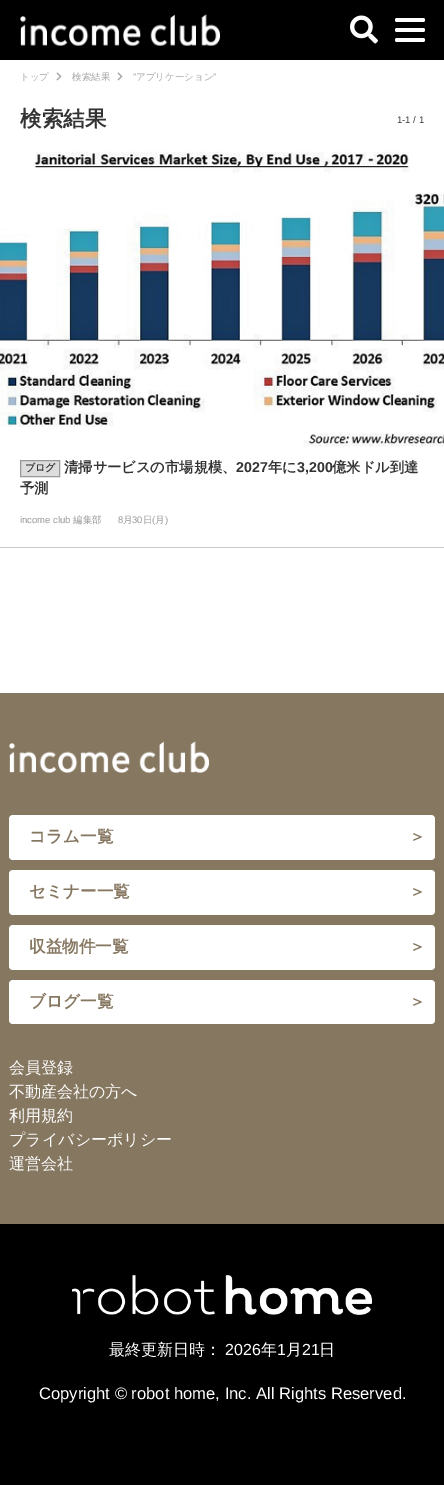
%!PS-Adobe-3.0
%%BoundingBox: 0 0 444 1485
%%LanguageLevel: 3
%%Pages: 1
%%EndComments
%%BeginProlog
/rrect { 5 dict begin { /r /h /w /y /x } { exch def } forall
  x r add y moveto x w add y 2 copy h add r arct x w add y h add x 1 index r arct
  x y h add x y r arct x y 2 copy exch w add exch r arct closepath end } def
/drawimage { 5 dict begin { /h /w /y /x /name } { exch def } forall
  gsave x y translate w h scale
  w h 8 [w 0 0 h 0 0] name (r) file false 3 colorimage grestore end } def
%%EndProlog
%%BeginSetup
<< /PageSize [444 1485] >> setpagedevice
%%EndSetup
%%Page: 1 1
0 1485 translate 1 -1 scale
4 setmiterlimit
1 setgray
0 0 444 1485 rectfill
0 setgray
0 0 444 60 rectfill
(images/1.raw) 20 14 200 32 drawimage
(images/2.raw) 350 15 28 29 drawimage
1 setgray
395 18 30 4 2 rrect fill
395 28 30 4 2 rrect fill
395 38 30 4 2 rrect fill
(images/3.raw) 56 72 6 9 drawimage
(images/3.raw) 117 72 6 9 drawimage
0.78 setgray
0 547 444 1 rectfill
(images/4.raw) 0 151 444 296 drawimage
0.867 setgray
newpath 20.5 460.5 moveto 59.5 460.5 lineto 59.5 476.5 lineto 20.5 476.5 lineto closepath gsave fill grestore
0.6 setgray
stroke
0.525 0.467 0.376 setrgbcolor
0 693 444 531 rectfill
(images/5.raw) 9 741 200 32 drawimage
1 setgray
9 815 426 45 4 rrect fill
9 870 426 45 4 rrect fill
9 925 426 45 4 rrect fill
9 980 426 44 4 rrect fill
0 setgray
0 1224 444 261 rectfill
(images/6.raw) 72 1275 300 40 drawimage
/WenQuanYiZenHei-Medium [9.5 0 0 -9.5 0 0] selectfont
0.659 setgray
20 80 moveto (トップ) show
72 80 moveto (検索結果) show
/LiberationSans-Regular [9.5 0 0 -9.5 0 0] selectfont
133 80 moveto (") show
/WenQuanYiZenHei-Medium [9.5 0 0 -9.5 0 0] selectfont
136 80 moveto (アプリケーション) show
/LiberationSans-Regular [9.5 0 0 -9.5 0 0] selectfont
213 80 moveto (") show
/WenQuanYiZenHei-Bold [21.5 0 0 -21.5 0 0] selectfont
0.2 setgray
20 126 moveto (検索結果) show
/LiberationSans-Regular [9.5 0 0 -9.5 0 0] selectfont
397 123 moveto (1-1 / 1) show
/WenQuanYiZenHei-Bold [10 0 0 -10 0 0] selectfont
25 471 moveto (ブログ) show
/WenQuanYiZenHei-Bold [14.25 0 0 -14.25 0 0] selectfont
64 472 moveto (清掃サービスの市場規模、) show
/LiberationSans-Bold [14.25 0 0 -14.25 0 0] selectfont
236 472 moveto (2027) show
/WenQuanYiZenHei-Bold [14.25 0 0 -14.25 0 0] selectfont
268 472 moveto (年に) show
/LiberationSans-Bold [14.25 0 0 -14.25 0 0] selectfont
297 472 moveto (3,200) show
/WenQuanYiZenHei-Bold [14.25 0 0 -14.25 0 0] selectfont
332 472 moveto (億米ドル到達) show
20 493 moveto (予測) show
/LiberationSans-Regular [9.5 0 0 -9.5 0 0] selectfont
0.6 setgray
20 523 moveto (income club) show
/WenQuanYiZenHei-Medium [9.5 0 0 -9.5 0 0] selectfont
73 523 moveto (編集部) show
/LiberationSans-Regular [9.5 0 0 -9.5 0 0] selectfont
118 523 moveto (8) show
/WenQuanYiZenHei-Medium [9.5 0 0 -9.5 0 0] selectfont
123 523 moveto (月) show
/LiberationSans-Regular [9.5 0 0 -9.5 0 0] selectfont
132 523 moveto (30) show
/WenQuanYiZenHei-Medium [9.5 0 0 -9.5 0 0] selectfont
143 523 moveto (日) show
/LiberationSans-Regular [9.5 0 0 -9.5 0 0] selectfont
152 523 moveto (\() show
/WenQuanYiZenHei-Medium [9.5 0 0 -9.5 0 0] selectfont
155 523 moveto (月) show
/LiberationSans-Regular [9.5 0 0 -9.5 0 0] selectfont
165 523 moveto (\)) show
/WenQuanYiZenHei-Bold [16.6 0 0 -16.6 0 0] selectfont
0.525 0.467 0.376 setrgbcolor
29 842 moveto (コラム一覧) show
409 842 moveto (＞) show
29 897 moveto (セミナー一覧) show
409 897 moveto (＞) show
29 952 moveto (収益物件一覧) show
409 952 moveto (＞) show
29 1007 moveto (ブログ一覧) show
409 1007 moveto (＞) show
/WenQuanYiZenHei-Medium [16 0 0 -16 0 0] selectfont
1 setgray
9 1073 moveto (会員登録) show
9 1097 moveto (不動産会社の方へ) show
9 1121 moveto (利用規約) show
9 1145 moveto (プライバシーポリシー) show
9 1169 moveto (運営会社) show
109 1355 moveto (最終更新日時：) show
/LiberationSans-Regular [16 0 0 -16 0 0] selectfont
225 1355 moveto (2026) show
/WenQuanYiZenHei-Medium [16 0 0 -16 0 0] selectfont
261 1355 moveto (年) show
/LiberationSans-Regular [16 0 0 -16 0 0] selectfont
277 1355 moveto (1) show
/WenQuanYiZenHei-Medium [16 0 0 -16 0 0] selectfont
286 1355 moveto (月) show
/LiberationSans-Regular [16 0 0 -16 0 0] selectfont
302 1355 moveto (21) show
/WenQuanYiZenHei-Medium [16 0 0 -16 0 0] selectfont
319 1355 moveto (日) show
/LiberationSans-Regular [16.6 0 0 -16.6 0 0] selectfont
39 1399 moveto (Copyright © robot home, Inc. All Rights Reserved.) show
showpage
%%EOF
